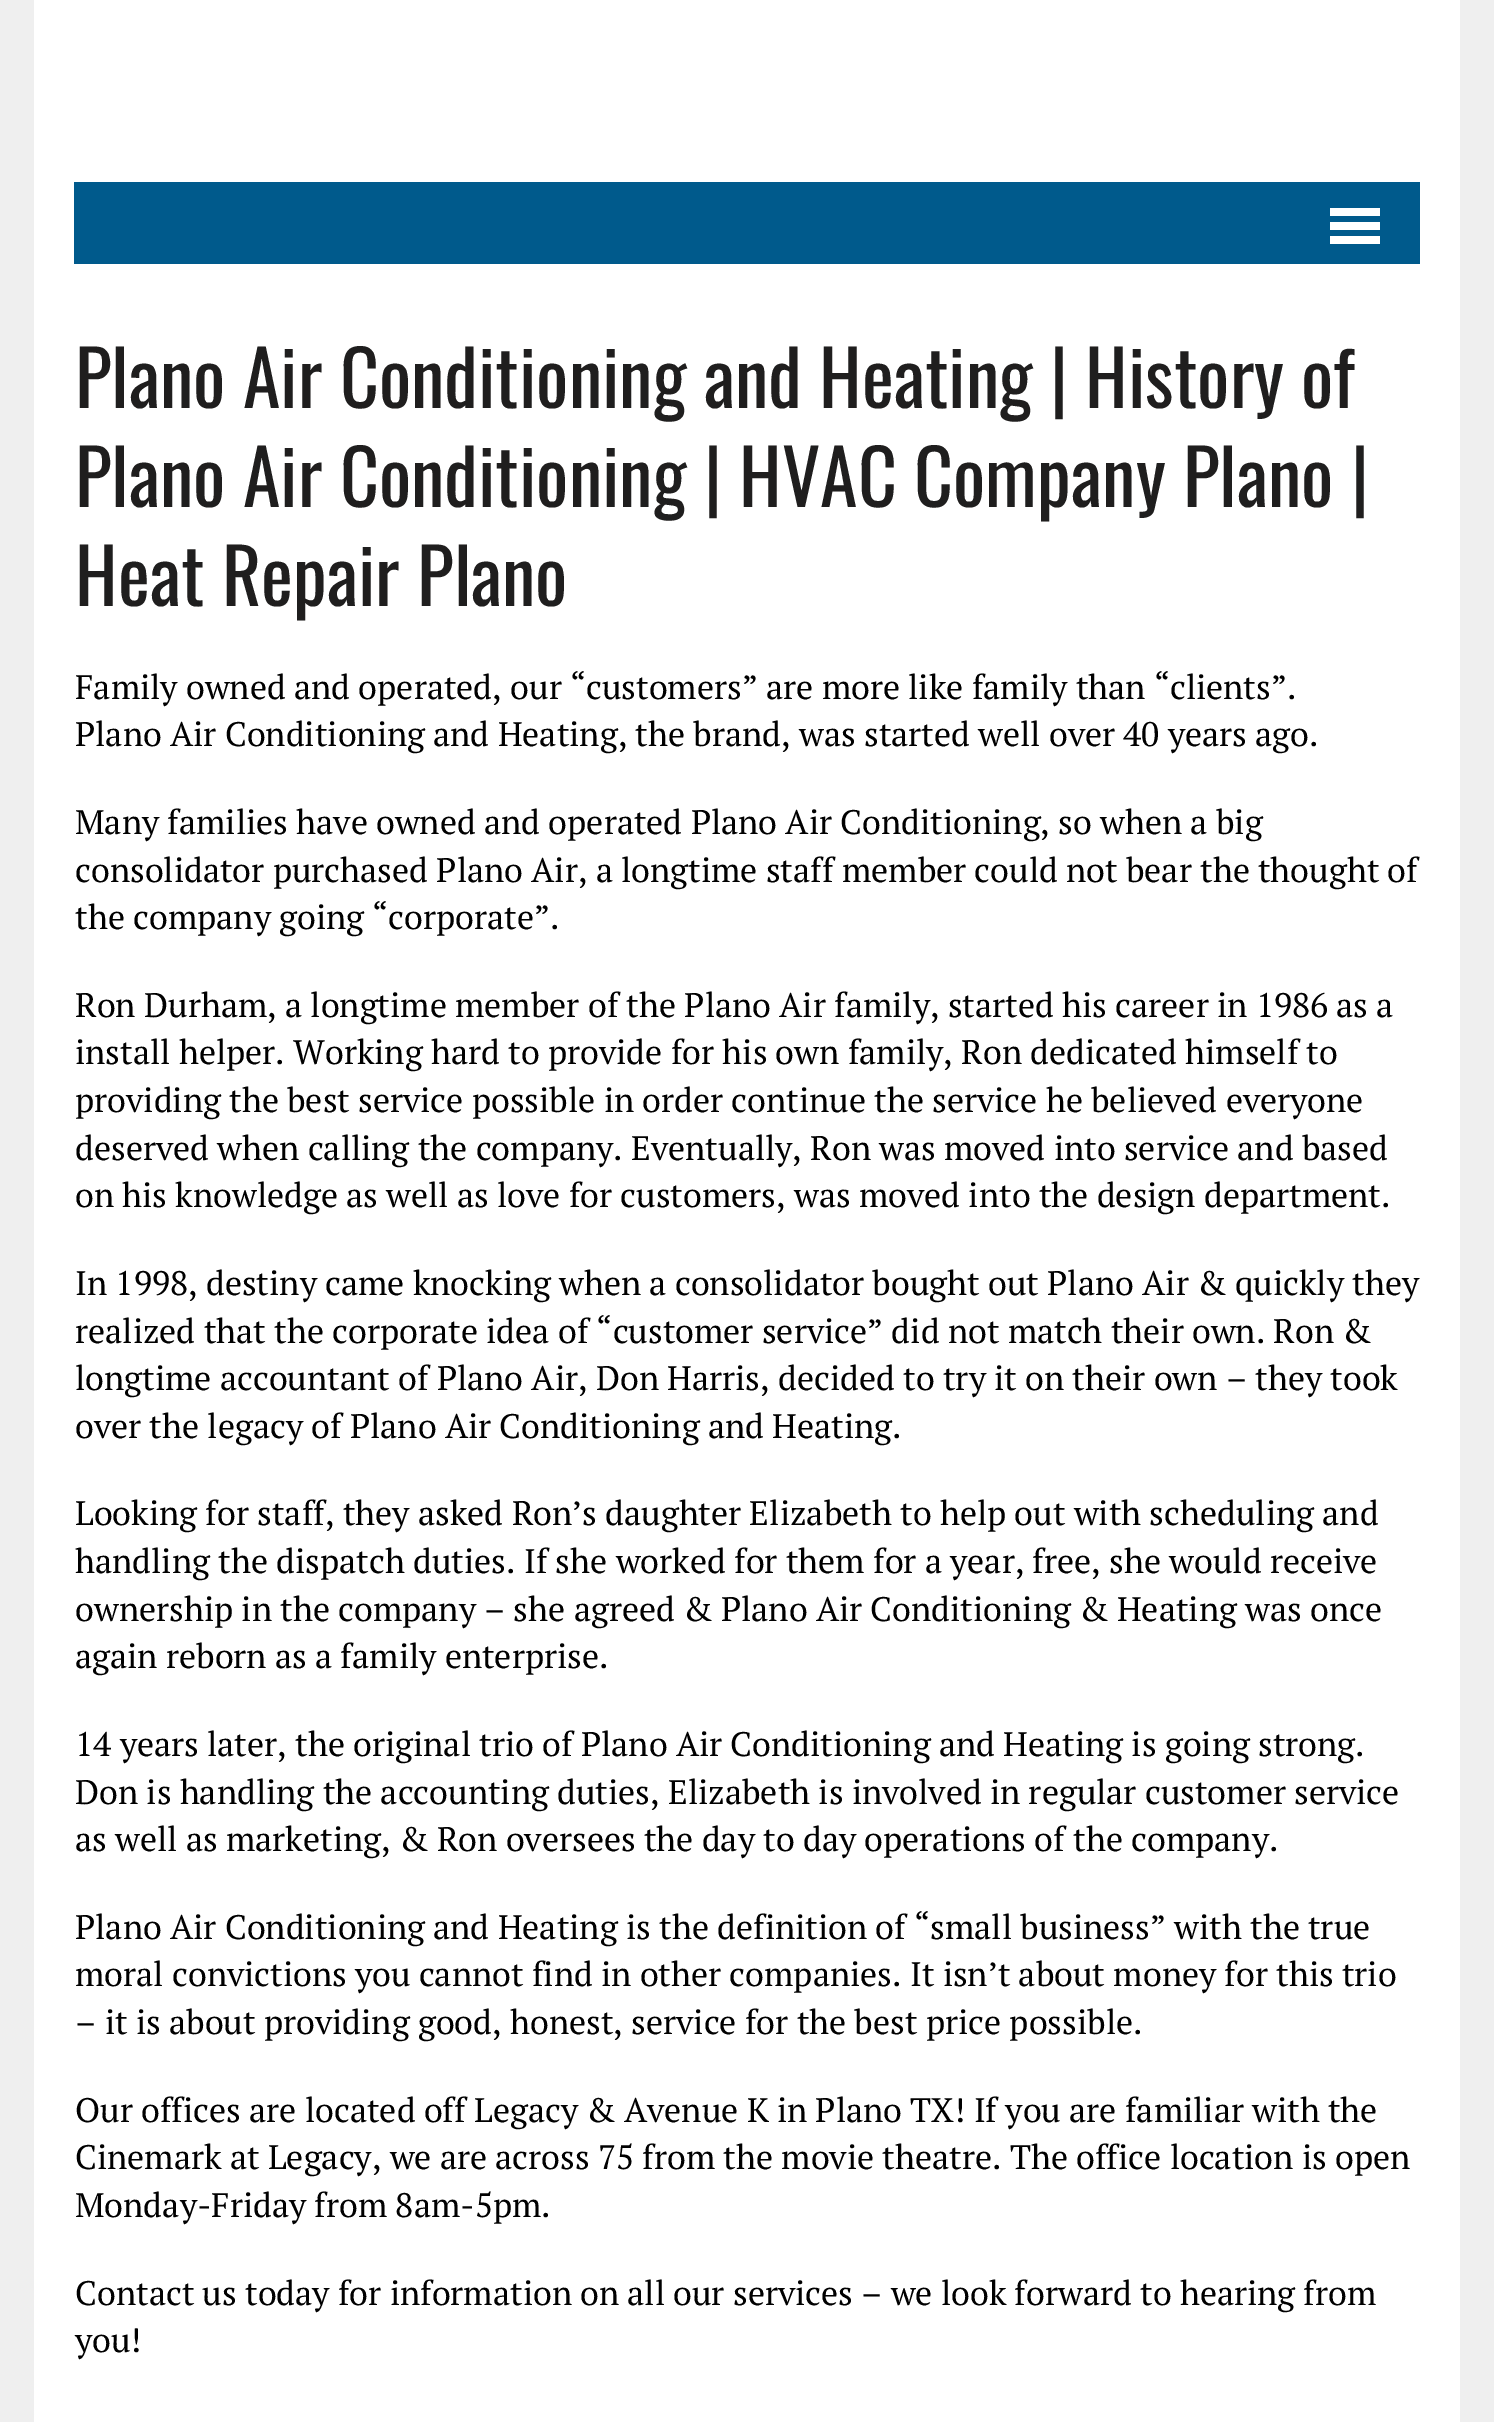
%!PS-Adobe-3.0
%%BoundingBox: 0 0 1494 2422
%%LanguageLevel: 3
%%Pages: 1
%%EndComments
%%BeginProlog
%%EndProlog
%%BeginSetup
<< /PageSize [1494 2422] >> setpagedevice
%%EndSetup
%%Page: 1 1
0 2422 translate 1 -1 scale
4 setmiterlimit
0.937 setgray
0 0 1494 2422 rectfill
1 setgray
34 0 1426 2422 rectfill
0 0.353 0.549 setrgbcolor
74 182 1346 82 rectfill
1 setgray
1330 208 50 8 rectfill
1330 222 50 8 rectfill
1330 236 50 8 rectfill
/Oswald-Regular [76 0 0 -76 0 0] selectfont
0.122 0.118 0.118 setrgbcolor
75 408 moveto (Plano Air Conditioning and Heating | History of) show
75 507 moveto (Plano Air Conditioning | HVAC Company Plano |) show
75 606 moveto (Heat Repair Plano) show
/PTSerif-Regular [34 0 0 -34 0 0] selectfont
0 setgray
75 699 moveto (Family owned and operated, our “customers” are more like family than “clients”.) show
75 746 moveto (Plano Air Conditioning and Heating, the brand, was started well over 40 years ago.) show
75 834 moveto (Many families have owned and operated Plano Air Conditioning, so when a big) show
75 882 moveto (consolidator purchased Plano Air, a longtime staff member could not bear the thought of) show
75 929 moveto (the company going “corporate”.) show
75 1017 moveto (Ron Durham, a longtime member of the Plano Air family, started his career in 1986 as a) show
75 1064 moveto (install helper. Working hard to provide for his own family, Ron dedicated himself to) show
75 1112 moveto (providing the best service possible in order continue the service he believed everyone) show
75 1160 moveto (deserved when calling the company. Eventually, Ron was moved into service and based) show
75 1207 moveto (on his knowledge as well as love for customers, was moved into the design department.) show
75 1295 moveto (In 1998, destiny came knocking when a consolidator bought out Plano Air & quickly they) show
75 1343 moveto (realized that the corporate idea of “customer service” did not match their own. Ron &) show
75 1390 moveto (longtime accountant of Plano Air, Don Harris, decided to try it on their own – they took) show
75 1438 moveto (over the legacy of Plano Air Conditioning and Heating.) show
75 1525 moveto (Looking for staff, they asked Ron’s daughter Elizabeth to help out with scheduling and) show
75 1573 moveto (handling the dispatch duties. If she worked for them for a year, free, she would receive) show
75 1621 moveto (ownership in the company – she agreed & Plano Air Conditioning & Heating was once) show
75 1668 moveto (again reborn as a family enterprise.) show
75 1756 moveto (14 years later, the original trio of Plano Air Conditioning and Heating is going strong.) show
75 1804 moveto (Don is handling the accounting duties, Elizabeth is involved in regular customer service) show
75 1851 moveto (as well as marketing, & Ron oversees the day to day operations of the company.) show
75 1939 moveto (Plano Air Conditioning and Heating is the definition of “small business” with the true) show
75 1986 moveto (moral convictions you cannot find in other companies. It isn’t about money for this trio) show
75 2034 moveto (– it is about providing good, honest, service for the best price possible.) show
75 2122 moveto (Our offices are located off Legacy & Avenue K in Plano TX! If you are familiar with the) show
75 2169 moveto (Cinemark at Legacy, we are across 75 from the movie theatre. The office location is open) show
75 2217 moveto (Monday-Friday from 8am-5pm.) show
75 2305 moveto (Contact us today for information on all our services – we look forward to hearing from) show
75 2352 moveto (you!) show
showpage
%%EOF
